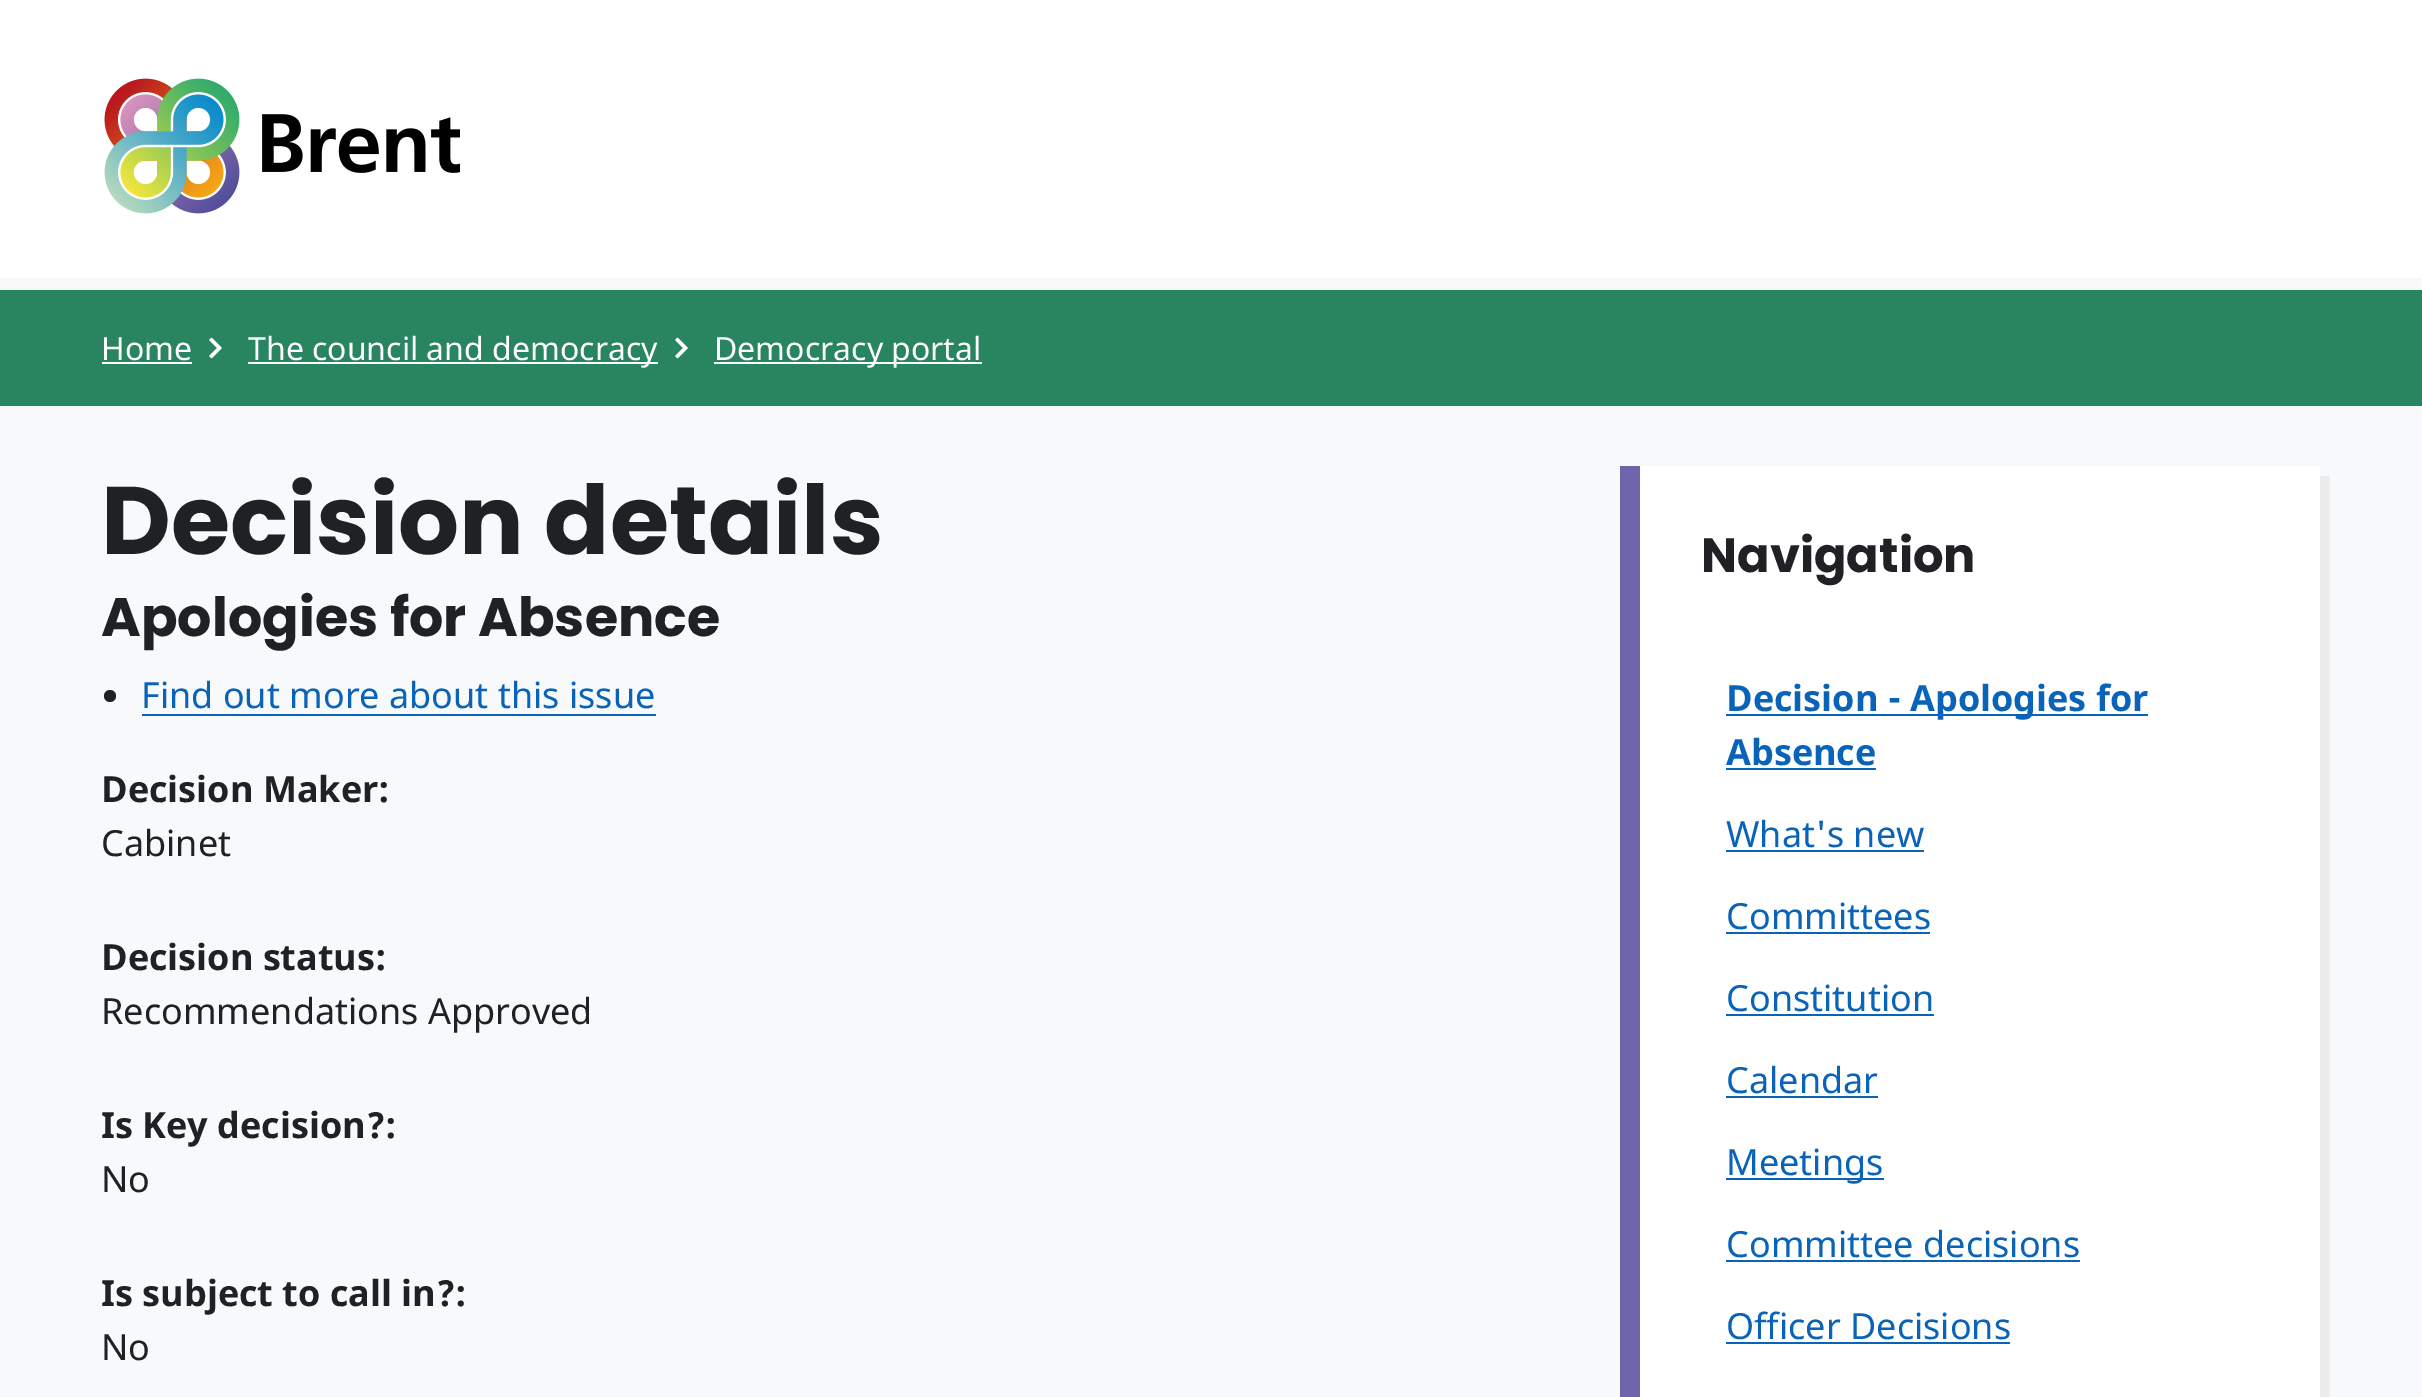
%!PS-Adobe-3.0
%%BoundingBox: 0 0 2422 1397
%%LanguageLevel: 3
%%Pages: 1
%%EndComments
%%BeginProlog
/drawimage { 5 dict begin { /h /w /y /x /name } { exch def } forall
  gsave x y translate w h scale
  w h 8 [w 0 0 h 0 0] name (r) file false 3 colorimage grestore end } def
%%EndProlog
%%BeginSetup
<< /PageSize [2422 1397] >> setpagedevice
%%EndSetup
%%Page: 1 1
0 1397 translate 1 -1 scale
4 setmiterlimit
1 setgray
0 0 2422 1397 rectfill
(images/1.raw) 104 78 356 136 drawimage
0.973 0.976 0.98 setrgbcolor
0 278 2422 12 rectfill
0.161 0.522 0.376 setrgbcolor
0 290 2422 116 rectfill
1 setgray
102 362 90 2 rectfill
(images/2.raw) 209 337 13 22 drawimage
248 362 410 2 rectfill
(images/2.raw) 675 337 13 22 drawimage
714 362 268 2 rectfill
0.973 0.976 0.98 setrgbcolor
0 406 2422 991 rectfill
0.125 0.129 0.141 setrgbcolor
newpath 110 696 6 0 360 arc closepath fill
0.035 0.392 0.725 setrgbcolor
142 714 514 2 rectfill
0.925 setgray
newpath 1630 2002 moveto 1630 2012 lineto 2330 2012 lineto 2330 476 lineto 2320 476 lineto 2320 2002 lineto closepath fill
1 setgray
1640 466 680 931 rectfill
0.427 0.392 0.675 setrgbcolor
1620 466 20 931 rectfill
0.035 0.392 0.725 setrgbcolor
1726 714 422 2 rectfill
1726 768 150 2 rectfill
1726 850 198 2 rectfill
1726 932 204 2 rectfill
1726 1014 208 2 rectfill
1726 1096 152 2 rectfill
1726 1178 158 2 rectfill
1726 1260 354 2 rectfill
1726 1342 284 2 rectfill
/NotoSans-Regular [32 0 0 -32 0 0] selectfont
1 setgray
101 360 moveto (Home) show
248 360 moveto (The council and democracy) show
714 360 moveto (Democracy portal) show
/Poppins-Bold [96 0 0 -96 0 0] selectfont
0.125 0.129 0.141 setrgbcolor
101 554 moveto (Decision details) show
/Poppins-Bold [54 0 0 -54 0 0] selectfont
101 636 moveto (Apologies for Absence) show
/NotoSans-Regular [36 0 0 -36 0 0] selectfont
0.035 0.392 0.725 setrgbcolor
141 708 moveto (Find out more about this issue) show
/NotoSans-Bold [36 0 0 -36 0 0] selectfont
0.125 0.129 0.141 setrgbcolor
101 802 moveto (Decision Maker:) show
/NotoSans-Regular [36 0 0 -36 0 0] selectfont
101 856 moveto (Cabinet) show
/NotoSans-Bold [36 0 0 -36 0 0] selectfont
101 970 moveto (Decision status:) show
/NotoSans-Regular [36 0 0 -36 0 0] selectfont
101 1024 moveto (Recommendations Approved) show
/NotoSans-Bold [36 0 0 -36 0 0] selectfont
101 1138 moveto (Is Key decision?:) show
/NotoSans-Regular [36 0 0 -36 0 0] selectfont
101 1192 moveto (No) show
/NotoSans-Bold [36 0 0 -36 0 0] selectfont
101 1306 moveto (Is subject to call in?:) show
/NotoSans-Regular [36 0 0 -36 0 0] selectfont
101 1360 moveto (No) show
/Poppins-Bold [48 0 0 -48 0 0] selectfont
1701 572 moveto (Navigation) show
/NotoSans-Bold [36 0 0 -36 0 0] selectfont
0.035 0.392 0.725 setrgbcolor
1726 711 moveto (Decision - Apologies for) show
1726 765 moveto (Absence) show
/NotoSans-Regular [36 0 0 -36 0 0] selectfont
1726 847 moveto (What's new) show
1726 929 moveto (Committees) show
1726 1011 moveto (Constitution) show
1726 1093 moveto (Calendar) show
1726 1175 moveto (Meetings) show
1726 1257 moveto (Committee decisions) show
1726 1339 moveto (Officer Decisions) show
showpage
%%EOF
